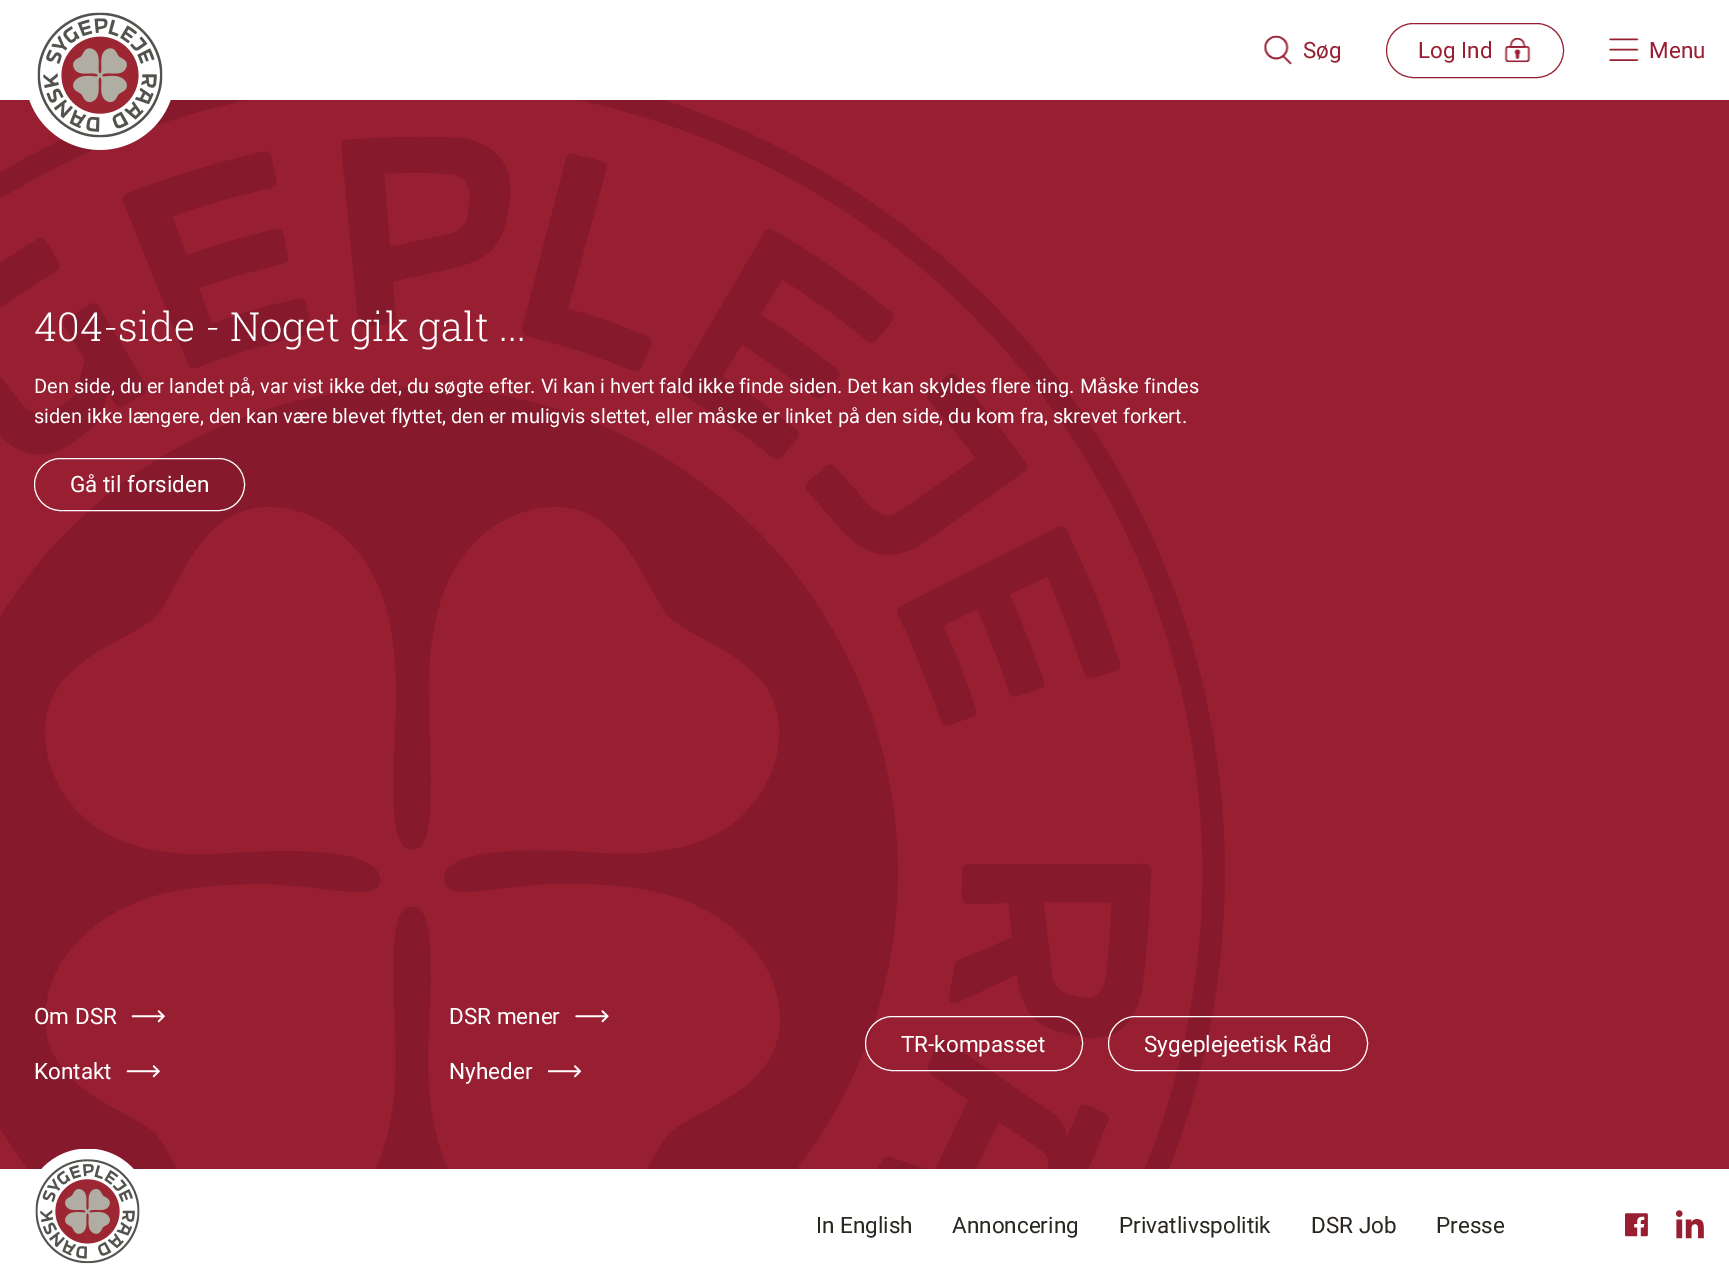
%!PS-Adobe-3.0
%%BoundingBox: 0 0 1729 1281
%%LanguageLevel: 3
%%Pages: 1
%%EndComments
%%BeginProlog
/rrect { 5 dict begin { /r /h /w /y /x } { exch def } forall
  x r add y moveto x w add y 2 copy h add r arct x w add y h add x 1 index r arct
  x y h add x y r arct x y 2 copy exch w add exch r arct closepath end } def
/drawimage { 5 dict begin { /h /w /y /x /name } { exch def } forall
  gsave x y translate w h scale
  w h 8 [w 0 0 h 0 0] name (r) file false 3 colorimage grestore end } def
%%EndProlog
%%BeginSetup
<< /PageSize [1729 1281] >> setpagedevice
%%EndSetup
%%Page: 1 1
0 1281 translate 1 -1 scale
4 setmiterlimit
1 setgray
0 0 1729 1281 rectfill
0.596 0.118 0.196 setrgbcolor
0 100 1729 1069 rectfill
(images/5.raw) 0 100 1225 819 drawimage
(images/1.raw) 29 12 142 138 drawimage
(images/2.raw) 1263 35 29 30 drawimage
1386.5 23.5 177 54 27 rrect stroke
(images/3.raw) 1504 37 27 26 drawimage
(images/4.raw) 1608 38 31 23 drawimage
1 setgray
34.5 458.5 210 52 26 rrect stroke
(images/6.raw) 0 919 1224 250 drawimage
(images/7.raw) 131 1010 34 13 drawimage
(images/8.raw) 575 1010 34 13 drawimage
(images/9.raw) 126 1065 34 13 drawimage
(images/10.raw) 548 1065 34 13 drawimage
865.5 1016.5 217 54 27 rrect stroke
1108.5 1016.5 259 54 27 rrect stroke
(images/11.raw) 35 1149 105 115 drawimage
(images/12.raw) 1625 1213 23 24 drawimage
(images/13.raw) 1676 1210 28 29 drawimage
/Roboto-Regular [22.5 0 0 -22.5 0 0] selectfont
0.596 0.118 0.196 setrgbcolor
1303 58 moveto (Søg) show
1418 58 moveto (Log Ind) show
1649 58 moveto (Menu) show
/RobotoSlab-Light [40 0 0 -40 0 0] selectfont
1 setgray
34 341 moveto (404-side - Noget gik galt ...) show
/Roboto-Regular [20 0 0 -20 0 0] selectfont
34 393 moveto (Den side, du er landet på, var vist ikke det, du søgte efter. Vi kan i hvert fald ikke finde siden. Det kan skyldes flere ting. Måske findes) show
34 423 moveto (siden ikke længere, den kan være blevet flyttet, den er muligvis slettet, eller måske er linket på den side, du kom fra, skrevet forkert.) show
/Roboto-Regular [22.5 0 0 -22.5 0 0] selectfont
70 492 moveto (Gå til forsiden) show
34 1024 moveto (Om DSR) show
449 1024 moveto (DSR mener) show
34 1079 moveto (Kontakt) show
449 1079 moveto (Nyheder) show
901 1052 moveto (TR-kompasset) show
1144 1052 moveto (Sygeplejeetisk Råd) show
0.161 0.153 0.122 setrgbcolor
816 1233 moveto (In English) show
952 1233 moveto (Annoncering) show
1119 1233 moveto (Privatlivspolitik) show
1311 1233 moveto (DSR Job) show
1436 1233 moveto (Presse) show
showpage
%%EOF
